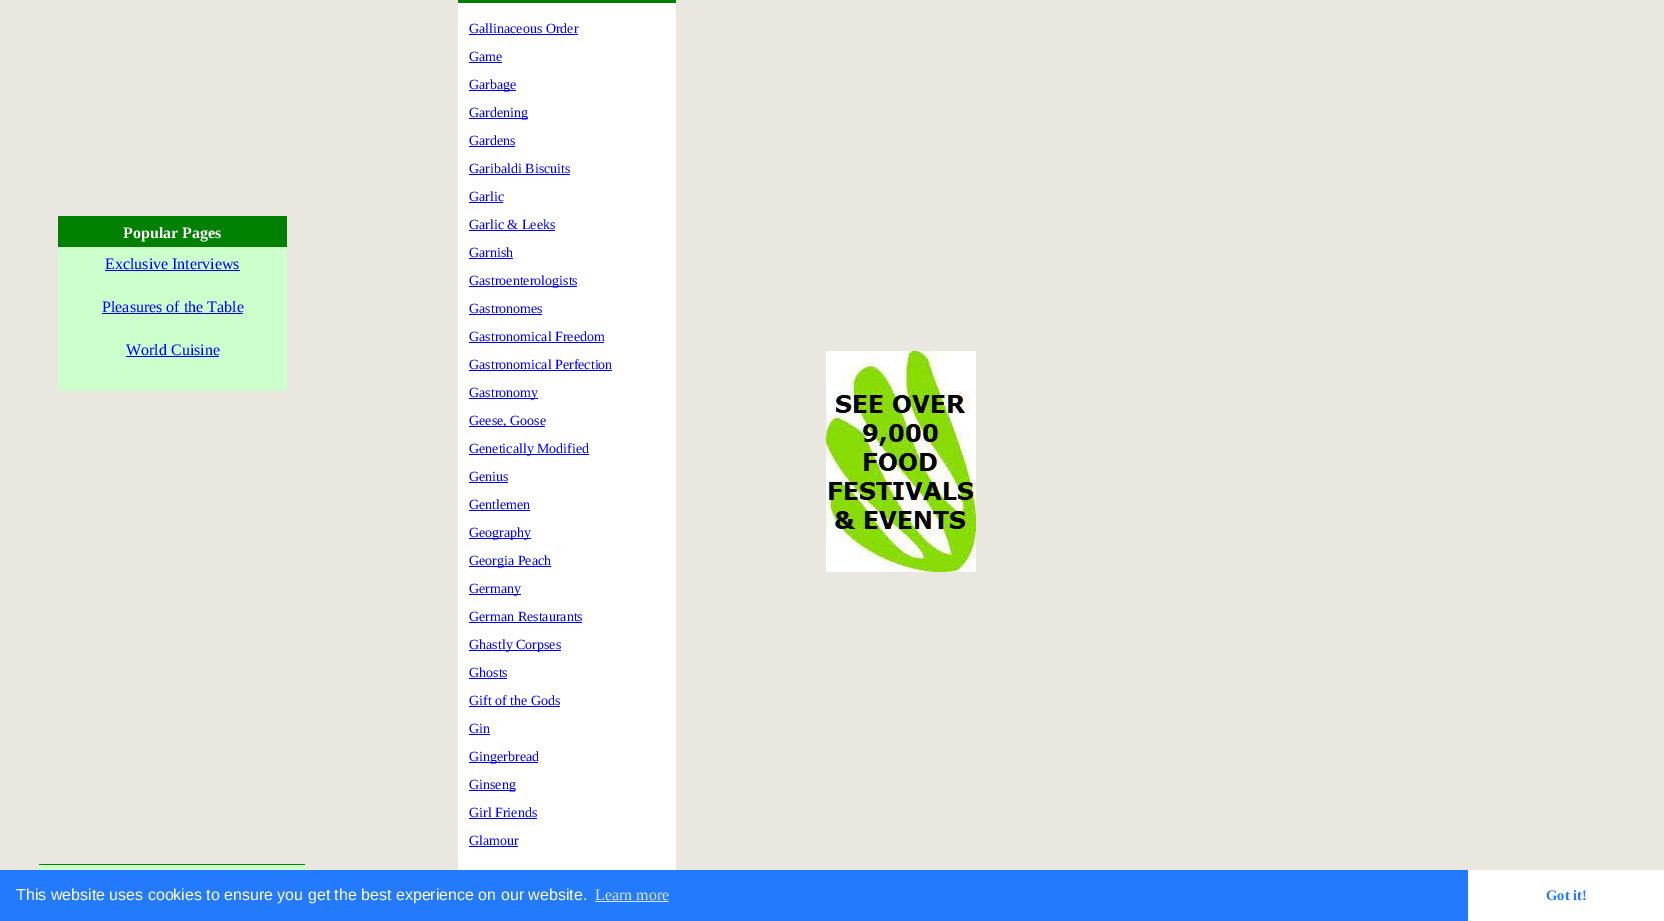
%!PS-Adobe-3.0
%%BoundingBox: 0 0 1664 921
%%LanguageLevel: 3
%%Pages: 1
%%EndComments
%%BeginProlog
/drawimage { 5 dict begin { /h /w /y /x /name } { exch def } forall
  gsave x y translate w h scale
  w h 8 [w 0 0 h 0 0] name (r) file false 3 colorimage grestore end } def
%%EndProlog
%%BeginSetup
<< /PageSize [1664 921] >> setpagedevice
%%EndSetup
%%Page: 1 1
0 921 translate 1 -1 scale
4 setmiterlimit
0.914 0.906 0.875 setrgbcolor
0 0 1664 921 rectfill
0 0.502 0 setrgbcolor
58 216 229 31 rectfill
0.8 1 0.8 setrgbcolor
58 247 229 144 rectfill
0 0 1 setrgbcolor
105 270 135 1 rectfill
102 313 141 1 rectfill
126 356 93 1 rectfill
0.8 1 0.8 setrgbcolor
39 865 266 5 rectfill
0 0.502 0 setrgbcolor
39 864 266 1 rectfill
458 0 218 3 rectfill
1 setgray
458 3 218 867 rectfill
0 0 1 setrgbcolor
469 34 109 1 rectfill
469 62 33 1 rectfill
469 90 47 1 rectfill
469 118 59 1 rectfill
469 146 46 1 rectfill
469 174 101 1 rectfill
469 202 34 1 rectfill
469 230 86 1 rectfill
469 258 44 1 rectfill
469 286 108 1 rectfill
469 314 73 1 rectfill
469 342 135 1 rectfill
469 370 143 1 rectfill
469 398 69 1 rectfill
469 426 76 1 rectfill
469 454 120 1 rectfill
469 482 39 1 rectfill
469 510 61 1 rectfill
469 538 62 1 rectfill
469 566 82 1 rectfill
469 594 52 1 rectfill
469 622 113 1 rectfill
469 650 92 1 rectfill
469 678 38 1 rectfill
469 706 91 1 rectfill
469 734 21 1 rectfill
469 762 69 1 rectfill
469 790 46 1 rectfill
469 818 68 1 rectfill
469 846 49 1 rectfill
(images/1.raw) 826 351 150 221 drawimage
0.137 0.478 0.988 setrgbcolor
0 870 1468 51 rectfill
0.827 0.894 0.996 setrgbcolor
595 901 74 1 rectfill
1 setgray
1468 870 196 51 rectfill
/LiberationSerif-Bold [16 0 0 -16 0 0] selectfont
123 238 moveto (Popular Pages) show
/LiberationSerif-Regular [16 0 0 -16 0 0] selectfont
0 0 1 setrgbcolor
105 269 moveto (Exclusive Interviews) show
102 312 moveto (Pleasures of the Table) show
126 355 moveto (World Cuisine) show
/LiberationSerif-Regular [14 0 0 -14 0 0] selectfont
469 33 moveto (Gallinaceous Order) show
469 61 moveto (Game) show
469 89 moveto (Garbage) show
469 117 moveto (Gardening) show
469 145 moveto (Gardens) show
469 173 moveto (Garibaldi Biscuits) show
469 201 moveto (Garlic) show
469 229 moveto (Garlic & Leeks) show
469 257 moveto (Garnish) show
469 285 moveto (Gastroenterologists) show
469 313 moveto (Gastronomes) show
469 341 moveto (Gastronomical Freedom) show
469 369 moveto (Gastronomical Perfection) show
469 397 moveto (Gastronomy) show
469 425 moveto (Geese, Goose) show
469 453 moveto (Genetically Modified) show
469 481 moveto (Genius) show
469 509 moveto (Gentlemen) show
469 537 moveto (Geography) show
469 565 moveto (Georgia Peach) show
469 593 moveto (Germany) show
469 621 moveto (German Restaurants) show
469 649 moveto (Ghastly Corpses) show
469 677 moveto (Ghosts) show
469 705 moveto (Gift of the Gods) show
469 733 moveto (Gin) show
469 761 moveto (Gingerbread) show
469 789 moveto (Ginseng) show
469 817 moveto (Girl Friends) show
469 845 moveto (Glamour) show
/LiberationSans-Regular [16 0 0 -16 0 0] selectfont
1 setgray
16 900 moveto (This website uses cookies to ensure you get the best experience on our website.) show
/LiberationSerif-Regular [16 0 0 -16 0 0] selectfont
0.827 0.894 0.996 setrgbcolor
595 900 moveto (Learn more) show
/LiberationSerif-Bold [14.5 0 0 -14.5 0 0] selectfont
0.137 0.478 0.988 setrgbcolor
1546 900 moveto (Got it!) show
showpage
%%EOF
